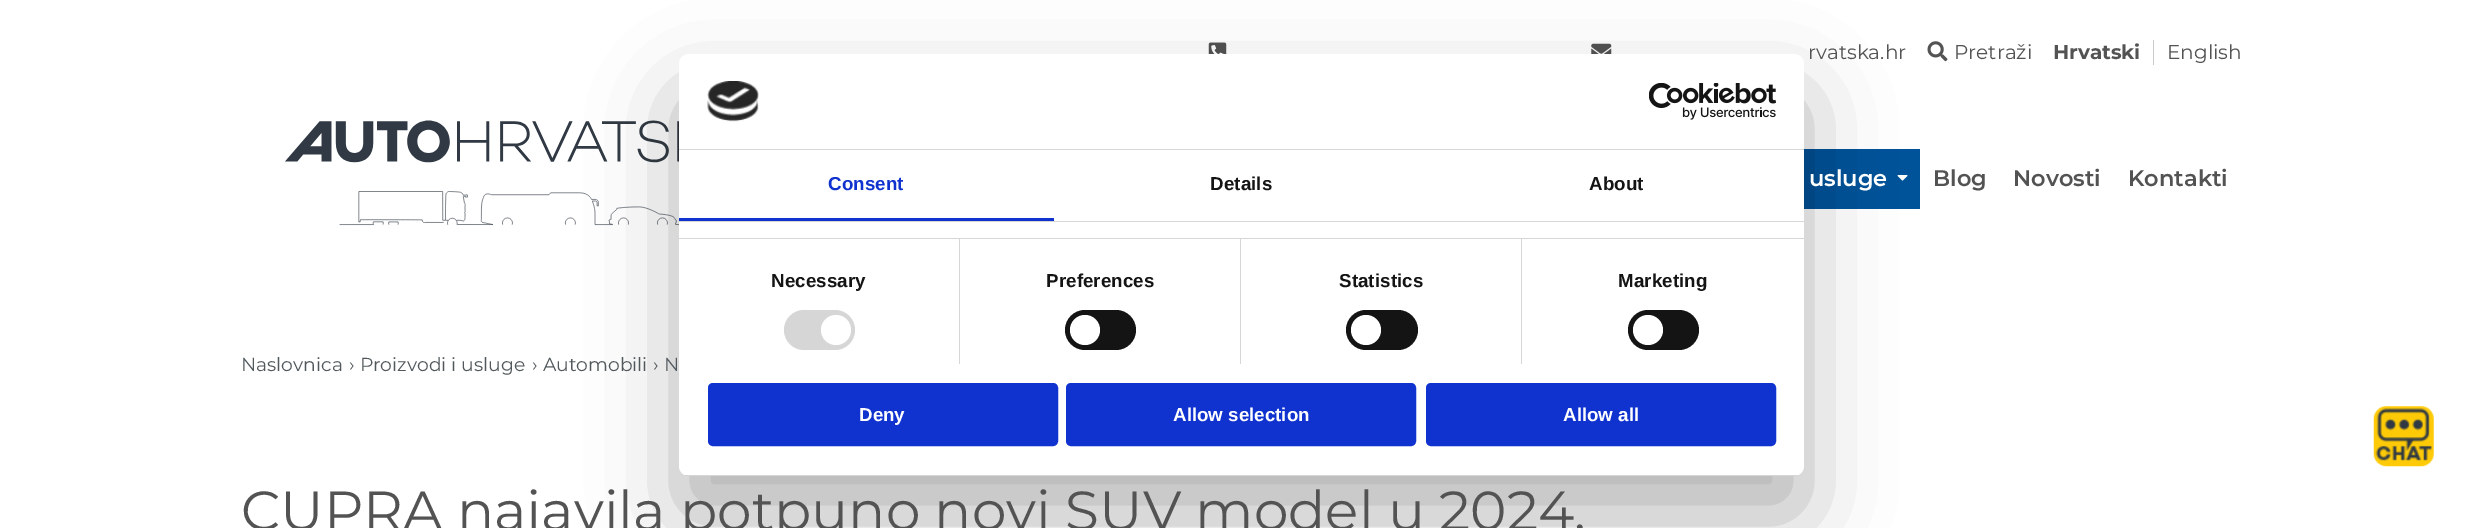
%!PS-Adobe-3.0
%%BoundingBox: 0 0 2482 528
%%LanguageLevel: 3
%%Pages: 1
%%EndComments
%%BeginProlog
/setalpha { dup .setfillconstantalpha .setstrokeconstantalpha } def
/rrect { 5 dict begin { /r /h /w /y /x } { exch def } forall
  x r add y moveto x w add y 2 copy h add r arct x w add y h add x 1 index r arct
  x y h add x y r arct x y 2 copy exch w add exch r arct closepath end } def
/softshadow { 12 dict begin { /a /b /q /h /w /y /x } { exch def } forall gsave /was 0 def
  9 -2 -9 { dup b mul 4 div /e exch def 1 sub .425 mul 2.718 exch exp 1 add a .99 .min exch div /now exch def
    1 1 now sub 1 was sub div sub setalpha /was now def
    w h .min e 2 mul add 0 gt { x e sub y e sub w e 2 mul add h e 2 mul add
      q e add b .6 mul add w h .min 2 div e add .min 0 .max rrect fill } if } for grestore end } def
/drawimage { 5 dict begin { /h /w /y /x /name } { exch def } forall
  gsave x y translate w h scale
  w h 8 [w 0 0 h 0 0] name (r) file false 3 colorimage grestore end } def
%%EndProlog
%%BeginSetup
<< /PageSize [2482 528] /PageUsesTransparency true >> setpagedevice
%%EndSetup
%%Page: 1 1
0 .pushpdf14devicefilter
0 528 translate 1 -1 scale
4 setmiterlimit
1 setgray
0 0 2482 528 rectfill
(images/1.raw) 1208 42 19 12 drawimage
(images/2.raw) 1591 43 21 11 drawimage
(images/3.raw) 1927 41 21 21 drawimage
0.8 setgray
2153 40 1 25 rectfill
(images/4.raw) 285 120 394 106 drawimage
0 0.325 0.6 setrgbcolor
1804 149 116 60 rectfill
(images/5.raw) 1897 175 11 6 drawimage
0 setgray
679 94 1125 422 10 42.5 0.3 softshadow
1 setgray
679 54 1125 422 10 rrect fill
0.839 setgray
679 149 1125 1 rectfill
(images/6.raw) 707 81 52 41 drawimage
(images/7.raw) 1649 83 127 37 drawimage
679 221 1125 1 rectfill
0.063 0.196 0.812 setrgbcolor
679 218 375 3 rectfill
0.839 setgray
679 238 1125 1 rectfill
959 239 1 125 rectfill
784 310 71 40 20 rrect fill
1 setgray
newpath 836 330 15 0 360 arc closepath fill
0.839 setgray
1240 239 1 125 rectfill
0.078 setgray
1065 310 71 40 20 rrect fill
1 setgray
newpath 1085 330 15 0 360 arc closepath fill
0.839 setgray
1521 239 1 125 rectfill
0.078 setgray
1346 310 72 40 20 rrect fill
1 setgray
newpath 1366 330 15 0 360 arc closepath fill
0.078 setgray
1628 310 71 40 20 rrect fill
1 setgray
newpath 1648 330 15 0 360 arc closepath fill
gsave
679 54 1125 422 10 rrect clip newpath
0.839 setgray
679 475 1125 1 rectfill
grestore
0.063 0.196 0.812 setrgbcolor
709.5 384.5 347 60 3.5 rrect gsave fill grestore
3 setlinewidth
stroke
1067.5 384.5 347 60 3.5 rrect gsave fill grestore
stroke
1427.5 384.5 347 60 3.5 rrect gsave fill grestore
stroke
(images/8.raw) 2373 406 61 61 drawimage
/Montserrat-Regular [20 0 0 -20 0 0] selectfont
0.325 setgray
1808 59 moveto (rvatska.hr) show
1954 59 moveto (Pretraži) show
/Montserrat-Bold [20 0 0 -20 0 0] selectfont
2053 59 moveto (Hrvatski) show
/Montserrat-Regular [20 0 0 -20 0 0] selectfont
2167 59 moveto (English) show
/Montserrat-SemiBold [22.5 0 0 -22.5 0 0] selectfont
1 setgray
1809 186 moveto (usluge) show
0.325 setgray
1933 186 moveto (Blog) show
2013 186 moveto (Novosti) show
2128 186 moveto (Kontakti) show
/Montserrat-Regular [18.75 0 0 -18.75 0 0] selectfont
0.318 0.345 0.361 setrgbcolor
241 371 moveto (Naslovnica) show
349 371 moveto (› Proizvodi i usluge) show
532 371 moveto (› Automobili) show
653 371 moveto (› N) show
/Montserrat-Regular [55 0 0 -55 0 0] selectfont
0.325 setgray
241 530 moveto (CUPRA najavila potpuno novi SUV model u 2024.) show
/LiberationSans-Bold [18.75 0 0 -18.75 0 0] selectfont
0.063 0.196 0.812 setrgbcolor
828 190 moveto 0.1 0 (Consent) ashow
0.078 setgray
1210 190 moveto 0.1 0 (Details) ashow
1589 190 moveto 0.1 0 (About) ashow
771 287 moveto 0.1 0 (Necessary) ashow
1046 287 moveto 0.1 0 (Preferences) ashow
1339 287 moveto 0.1 0 (Statistics) ashow
1618 287 moveto 0.1 0 (Marketing) ashow
1 setgray
859 421 moveto (Deny) show
1173 421 moveto (Allow selection) show
1563 421 moveto (Allow all) show
.poppdf14devicefilter showpage
%%EOF
